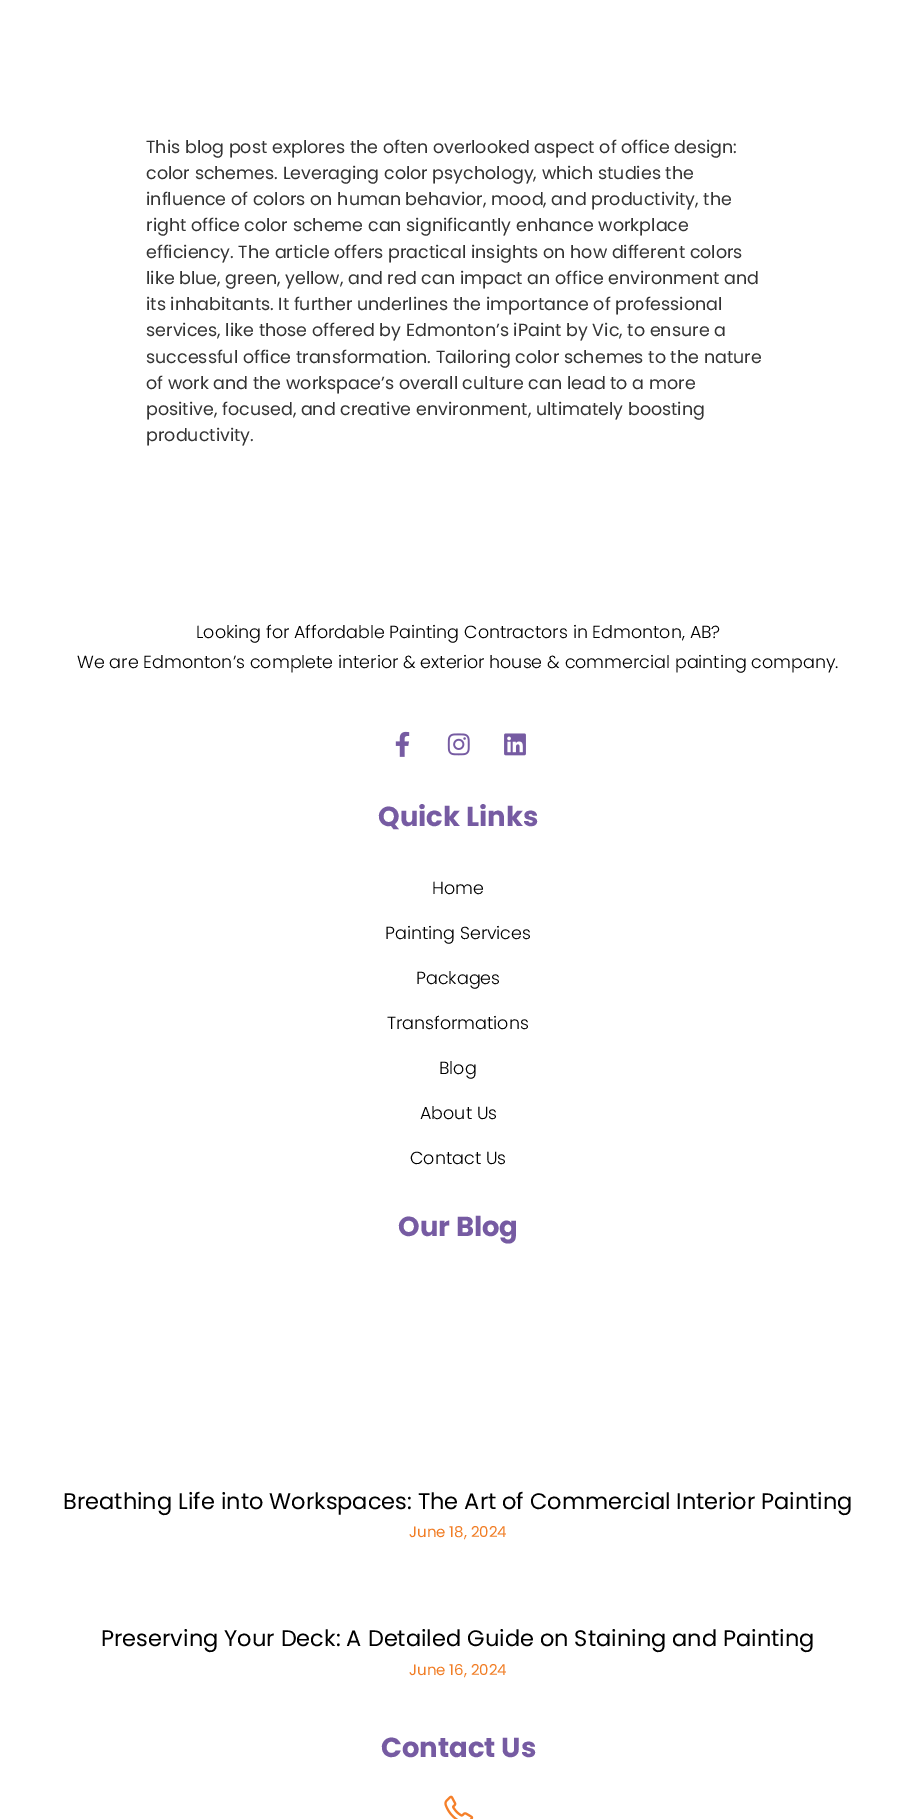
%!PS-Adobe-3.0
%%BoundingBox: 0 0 916 1819
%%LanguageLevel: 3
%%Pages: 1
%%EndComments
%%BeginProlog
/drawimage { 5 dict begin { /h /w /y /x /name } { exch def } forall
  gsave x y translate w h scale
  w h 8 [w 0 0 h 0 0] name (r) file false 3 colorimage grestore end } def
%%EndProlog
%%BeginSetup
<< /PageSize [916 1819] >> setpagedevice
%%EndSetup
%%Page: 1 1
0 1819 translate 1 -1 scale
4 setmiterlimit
1 setgray
0 0 916 1819 rectfill
(images/1.raw) 395 731 15 26 drawimage
(images/2.raw) 447 733 23 23 drawimage
(images/3.raw) 504 733 22 23 drawimage
(images/4.raw) 444 1795 30 24 drawimage
/Poppins-Regular [17.5 0 0 -17.5 0 0] selectfont
0.2 setgray
146 153 moveto (This blog post explores the often overlooked aspect of office design:) show
146 179 moveto (color schemes. Leveraging color psychology, which studies the) show
146 205 moveto (influence of colors on human behavior, mood, and productivity, the) show
146 231 moveto (right office color scheme can significantly enhance workplace) show
146 258 moveto (efficiency. The article offers practical insights on how different colors) show
146 284 moveto (like blue, green, yellow, and red can impact an office environment and) show
146 310 moveto (its inhabitants. It further underlines the importance of professional) show
146 336 moveto (services, like those offered by Edmonton’s iPaint by Vic, to ensure a) show
146 363 moveto (successful office transformation. Tailoring color schemes to the nature) show
146 389 moveto (of work and the workspace’s overall culture can lead to a more) show
146 415 moveto (positive, focused, and creative environment, ultimately boosting) show
146 441 moveto (productivity.) show
/Poppins-Light [17.5 0 0 -17.5 0 0] selectfont
0 setgray
196 638 moveto (Looking for Affordable Painting Contractors in Edmonton, AB?) show
77 668 moveto (We are Edmonton’s complete interior & exterior house & commercial painting company.) show
/Poppins-Bold [27.5 0 0 -27.5 0 0] selectfont
0.463 0.357 0.635 setrgbcolor
378 826 moveto (Quick Links) show
/Poppins-Light [17.5 0 0 -17.5 0 0] selectfont
0 setgray
432 894 moveto (Home) show
385 939 moveto (Painting Services) show
416 984 moveto (Packages) show
387 1029 moveto (Transformations) show
439 1074 moveto (Blog) show
420 1119 moveto (About Us) show
410 1164 moveto (Contact Us) show
/Poppins-Bold [27.5 0 0 -27.5 0 0] selectfont
0.463 0.357 0.635 setrgbcolor
398 1236 moveto (Our Blog) show
/Poppins-Regular [22.5 0 0 -22.5 0 0] selectfont
0 setgray
63 1509 moveto (Breathing Life into Workspaces: The Art of Commercial Interior Painting) show
/Poppins-Regular [15 0 0 -15 0 0] selectfont
0.945 0.49 0.145 setrgbcolor
409 1537 moveto (June 18, 2024) show
/Poppins-Regular [22.5 0 0 -22.5 0 0] selectfont
0 setgray
101 1646 moveto (Preserving Your Deck: A Detailed Guide on Staining and Painting) show
/Poppins-Regular [15 0 0 -15 0 0] selectfont
0.945 0.49 0.145 setrgbcolor
409 1675 moveto (June 16, 2024) show
/Poppins-Bold [27.5 0 0 -27.5 0 0] selectfont
0.463 0.357 0.635 setrgbcolor
381 1757 moveto (Contact Us) show
showpage
%%EOF
